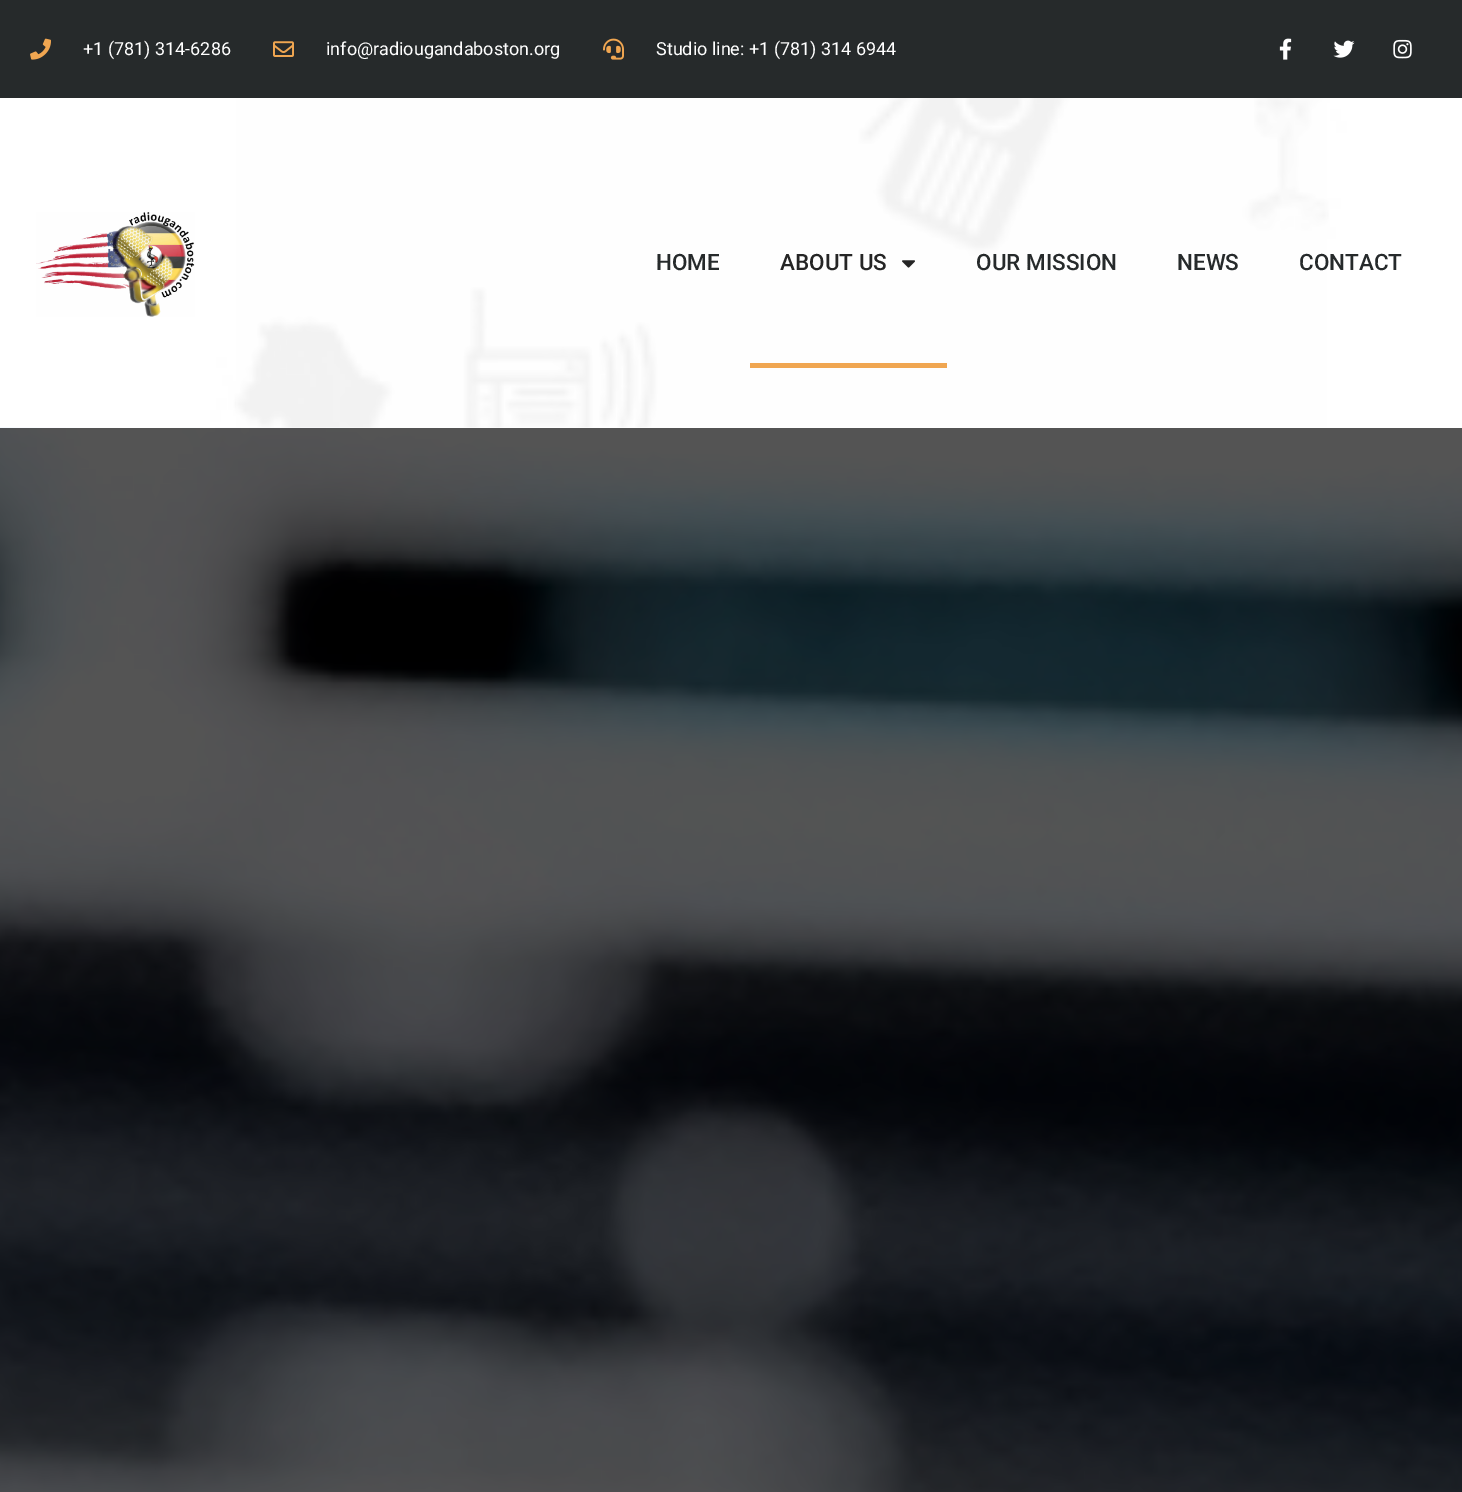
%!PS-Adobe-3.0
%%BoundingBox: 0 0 1462 1492
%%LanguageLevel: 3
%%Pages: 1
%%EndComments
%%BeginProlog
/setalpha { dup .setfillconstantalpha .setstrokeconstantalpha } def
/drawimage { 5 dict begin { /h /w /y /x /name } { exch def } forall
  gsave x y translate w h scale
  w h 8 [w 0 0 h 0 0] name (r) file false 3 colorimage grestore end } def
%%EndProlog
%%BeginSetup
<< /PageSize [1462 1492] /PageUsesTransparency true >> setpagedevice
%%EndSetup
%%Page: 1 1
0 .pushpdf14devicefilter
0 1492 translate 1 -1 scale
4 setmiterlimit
1 setgray
0 0 1462 1492 rectfill
(images/1.raw) 93 98 1369 330 drawimage
0.149 0.165 0.169 setrgbcolor
0 0 1462 98 rectfill
(images/2.raw) 30 38 21 22 drawimage
(images/3.raw) 273 41 21 16 drawimage
(images/4.raw) 603 38 21 22 drawimage
(images/5.raw) 1279 38 13 22 drawimage
(images/6.raw) 1333 40 22 18 drawimage
(images/7.raw) 1393 39 19 20 drawimage
0.48 setalpha
0.992 setgray
236 98 1091 330 rectfill
1 setalpha
(images/8.raw) 36 212 159 105 drawimage
(images/9.raw) 902 260 13 8 drawimage
0.941 0.651 0.318 setrgbcolor
750 363 197 5 rectfill
(images/10.raw) 0 427 1462 1065 drawimage
/Roboto-Regular [18 0 0 -18 0 0] selectfont
1 setgray
83 55 moveto (+1 \(781\) 314-6286) show
326 55 moveto (info@radiougandaboston.org) show
656 55 moveto (Studio line: +1 \(781\) 314 6944) show
/Roboto-Medium [22.5 0 0 -22.5 0 0] selectfont
0.149 0.165 0.169 setrgbcolor
656 270 moveto (HOME) show
0.145 setgray
780 270 moveto (ABOUT US) show
0.149 0.165 0.169 setrgbcolor
976 270 moveto (OUR MISSION) show
1177 270 moveto (NEWS) show
1299 270 moveto (CONTACT) show
.poppdf14devicefilter showpage
%%EOF
